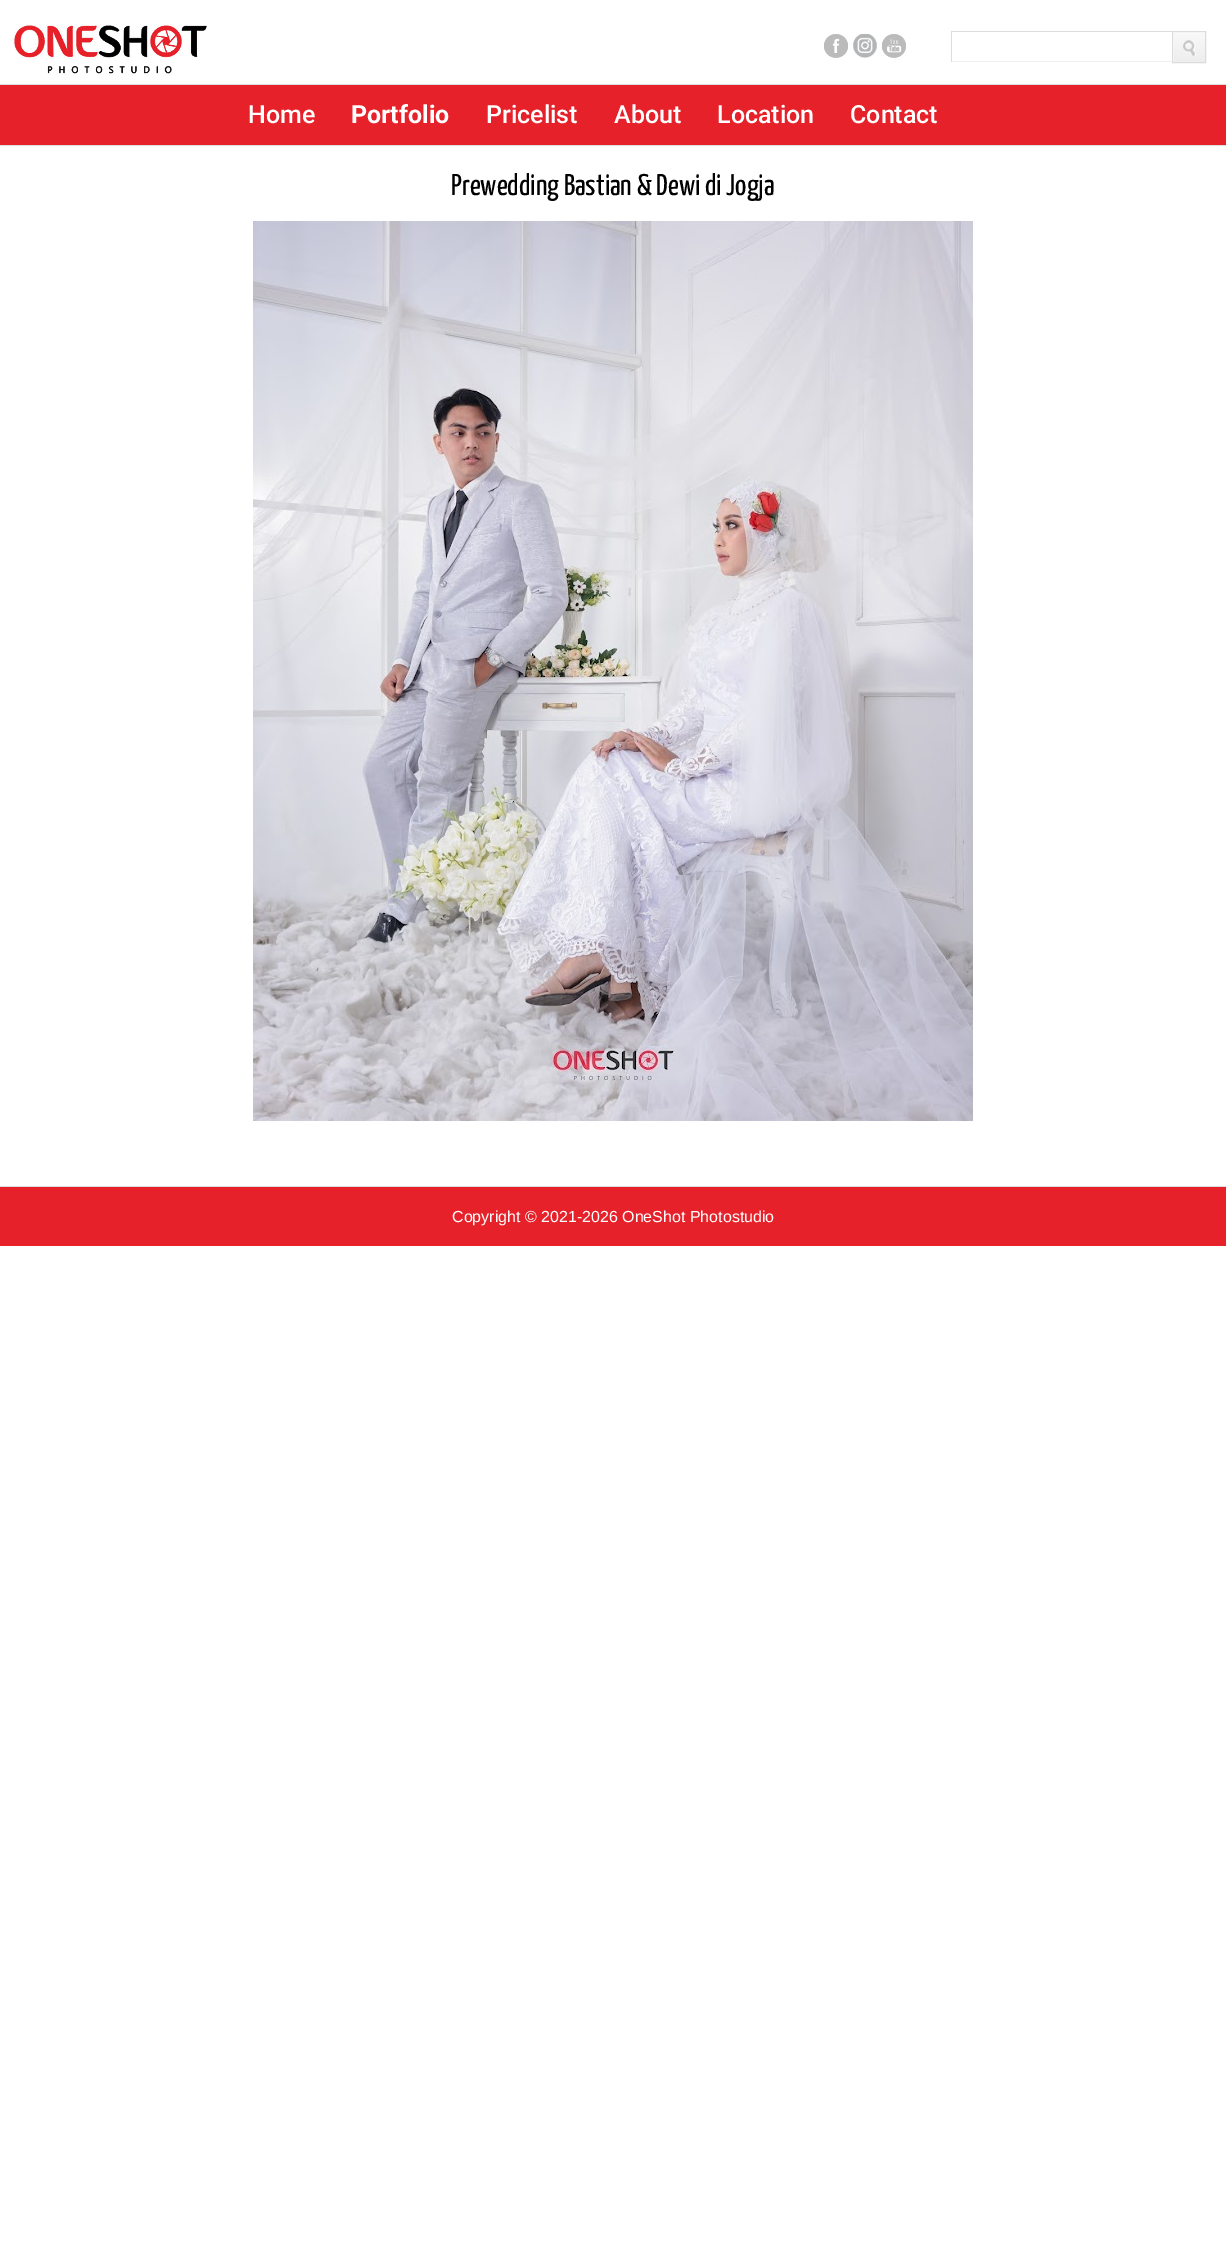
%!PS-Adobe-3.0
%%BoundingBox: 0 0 1226 2255
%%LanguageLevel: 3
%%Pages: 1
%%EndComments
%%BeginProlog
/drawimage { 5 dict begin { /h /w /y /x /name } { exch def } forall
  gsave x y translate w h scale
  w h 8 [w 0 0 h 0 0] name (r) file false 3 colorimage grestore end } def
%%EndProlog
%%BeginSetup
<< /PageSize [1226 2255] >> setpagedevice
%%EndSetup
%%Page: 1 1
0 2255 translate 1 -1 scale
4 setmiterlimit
1 setgray
0 0 1226 2255 rectfill
0.867 setgray
0 84 1226 1 rectfill
(images/1.raw) 14 25 193 49 drawimage
(images/2.raw) 14 25 193 49 drawimage
(images/3.raw) 824 34 24 24 drawimage
(images/4.raw) 853 34 24 24 drawimage
(images/5.raw) 882 34 24 24 drawimage
0.863 setgray
951 31 221 1 rectfill
0.941 setgray
951 61 221 1 rectfill
0.863 setgray
951 31 1 31 rectfill
gsave newpath 1174 33 moveto 1205 33 lineto 1205 62 lineto 1174 62 lineto closepath clip newpath
<< /ShadingType 2 /ColorSpace /DeviceRGB /Coords [1173 62 1173 32] /Extend [true true] /Function << /FunctionType 2 /Domain [0 1] /C0 [0.929 0.929 0.929] /C1 [0.98 0.98 0.98] /N 1 >> >> shfill grestore
1172.5 31.5 33 31 rectstroke
(images/6.raw) 1183 40 13 16 drawimage
0.902 0.129 0.161 setrgbcolor
0 85 1226 60 rectfill
0.867 setgray
0 145 1226 1 rectfill
(images/7.raw) 253 221 720 900 drawimage
0.902 0.129 0.161 setrgbcolor
0 1187 1226 59 rectfill
0.867 setgray
0 1186 1226 1 rectfill
/Roboto-Medium [25 0 0 -25 0 0] selectfont
1 setgray
248 123 moveto (Home) show
/Roboto-Bold [25 0 0 -25 0 0] selectfont
351 123 moveto (Portfolio) show
/Roboto-Medium [25 0 0 -25 0 0] selectfont
486 123 moveto (Pricelist) show
614 123 moveto (About) show
717 123 moveto (Location) show
850 123 moveto (Contact) show
/YanoneKaffeesatz-Regular [30 0 0 -30 0 0] selectfont
0 setgray
451 195 moveto (Prewedding Bastian & Dewi di Jogja) show
/LiberationSans-Regular [16 0 0 -16 0 0] selectfont
1 setgray
452 1222 moveto (Copyright © 2021-2026 OneShot Photostudio) show
showpage
%%EOF
